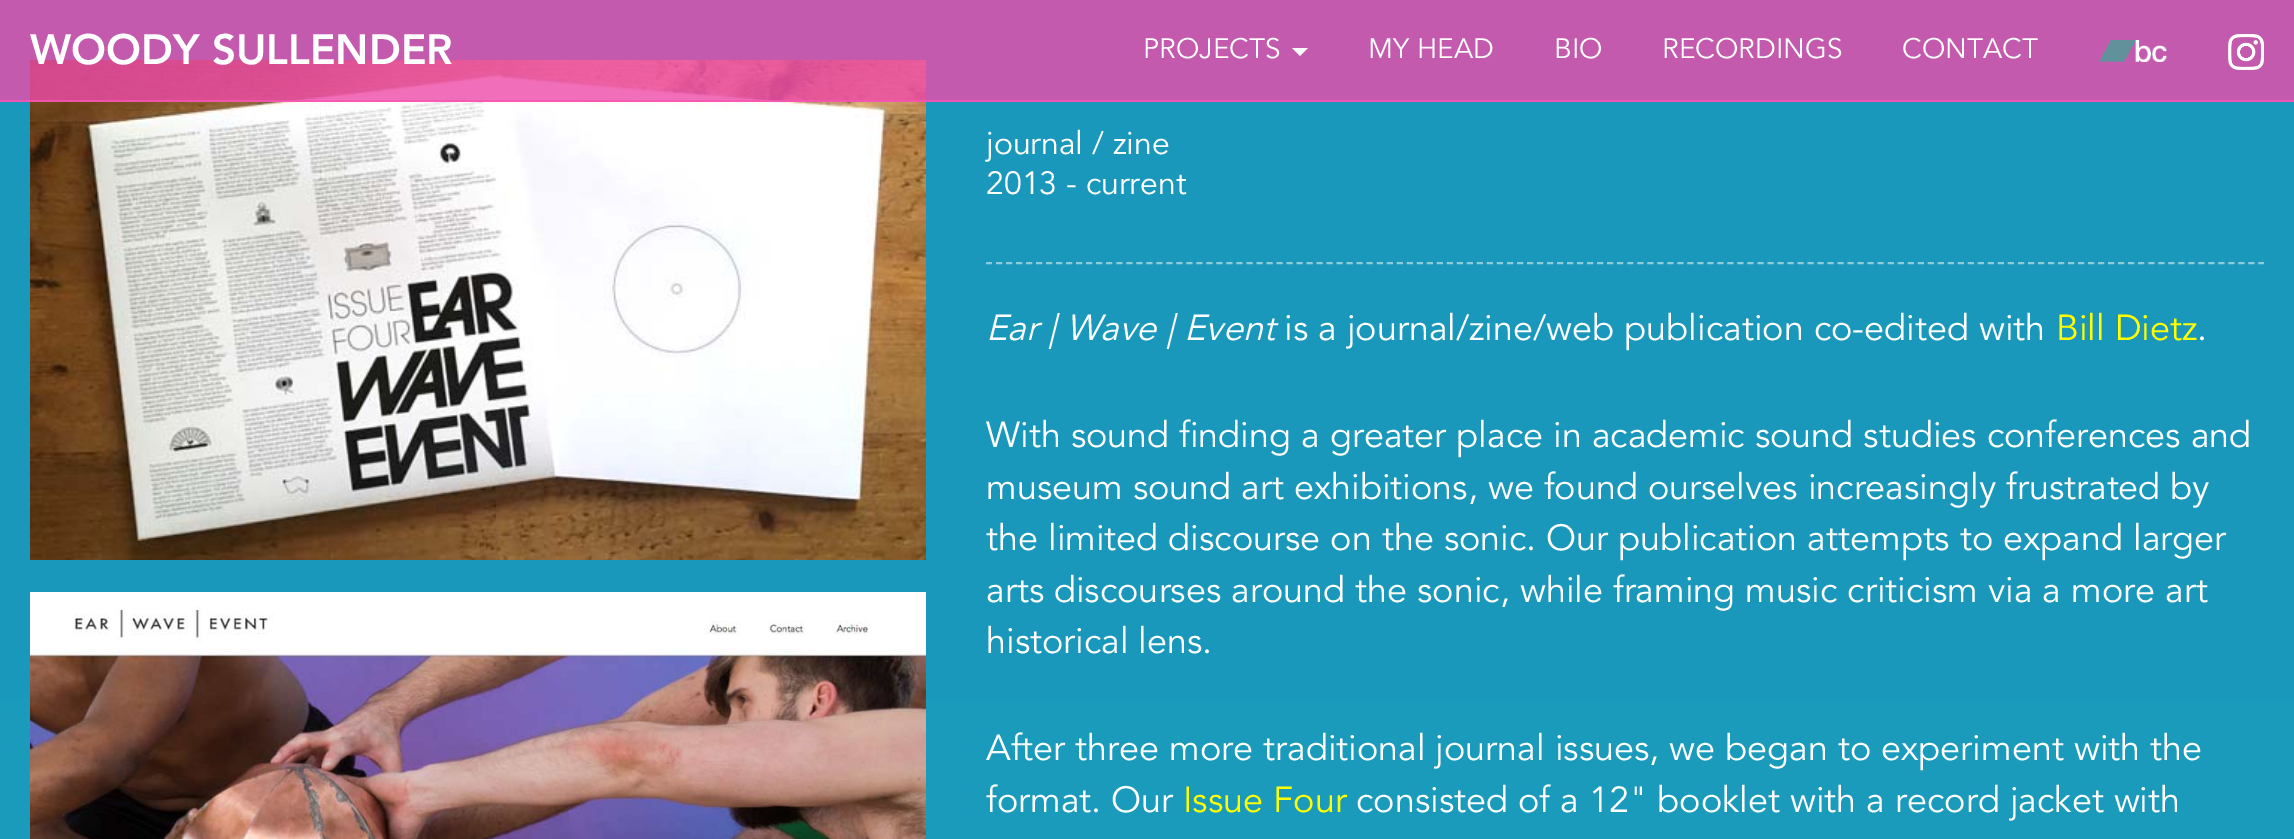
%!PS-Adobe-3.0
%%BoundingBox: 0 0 2294 839
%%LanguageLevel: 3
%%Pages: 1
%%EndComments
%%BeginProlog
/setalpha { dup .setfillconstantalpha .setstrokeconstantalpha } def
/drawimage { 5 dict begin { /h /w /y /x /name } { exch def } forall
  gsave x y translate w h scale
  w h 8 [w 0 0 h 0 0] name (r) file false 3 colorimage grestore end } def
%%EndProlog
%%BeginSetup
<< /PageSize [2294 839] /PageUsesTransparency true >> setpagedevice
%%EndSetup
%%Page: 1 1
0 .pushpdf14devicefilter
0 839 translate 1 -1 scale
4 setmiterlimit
0.102 0.608 0.737 setrgbcolor
0 0 2294 839 rectfill
0.102 0.596 0.733 setrgbcolor
0 0 2294 700 rectfill
(images/3.raw) 30 60 896 500 drawimage
0.8 setalpha
0.933 0.29 0.663 setrgbcolor
0 0 2294 102 rectfill
0.973 0.329 0.702 setrgbcolor
0 100 2294 2 rectfill
1 setalpha
1 setgray
newpath 1292 48 moveto 1308 48 lineto 1300 56 lineto closepath fill
(images/1.raw) 2099 40 68 22 drawimage
(images/2.raw) 2228 34 36 36 drawimage
(images/4.raw) 30 592 896 247 drawimage
0.549 0.8 0.867 setrgbcolor
2 setlinewidth
[6 4.02] 0 setdash
newpath 986 263 moveto 2264 263 lineto stroke
/Avenir-Black [42 0 0 -42 0 0] selectfont
1 setgray
30 64 moveto (WOODY SULLENDER) show
/Avenir-Regular [28 0 0 -28 0 0] selectfont
1143 58 moveto (PROJECTS) show
1368 58 moveto (MY HEAD) show
1554 58 moveto (BIO) show
1662 58 moveto (RECORDINGS) show
1902 58 moveto (CONTACT) show
/Avenir-Regular [32 0 0 -32 0 0] selectfont
986 154 moveto (journal / zine) show
986 194 moveto (2013 - current) show
/Avenir-Italic [36 0 0 -36 0 0] selectfont
986 340 moveto (Ear | Wave | Event) show
/Avenir-Regular [36 0 0 -36 0 0] selectfont
1284 340 moveto (is a journal/zine/web publication co-edited with) show
1 1 0 setrgbcolor
2056 340 moveto (Bill Dietz) show
1 setgray
2197 340 moveto (.) show
986 447 moveto (With sound finding a greater place in academic sound studies conferences and) show
986 499 moveto (museum sound art exhibitions, we found ourselves increasingly frustrated by) show
986 550 moveto (the limited discourse on the sonic. Our publication attempts to expand larger) show
986 602 moveto (arts discourses around the sonic, while framing music criticism via a more art) show
986 653 moveto (historical lens.) show
986 760 moveto (After three more traditional journal issues, we began to experiment with the) show
986 812 moveto (format. Our) show
1 1 0 setrgbcolor
1183 812 moveto (Issue Four) show
1 setgray
1356 812 moveto (consisted of a 12" booklet with a record jacket with) show
.poppdf14devicefilter showpage
%%EOF
